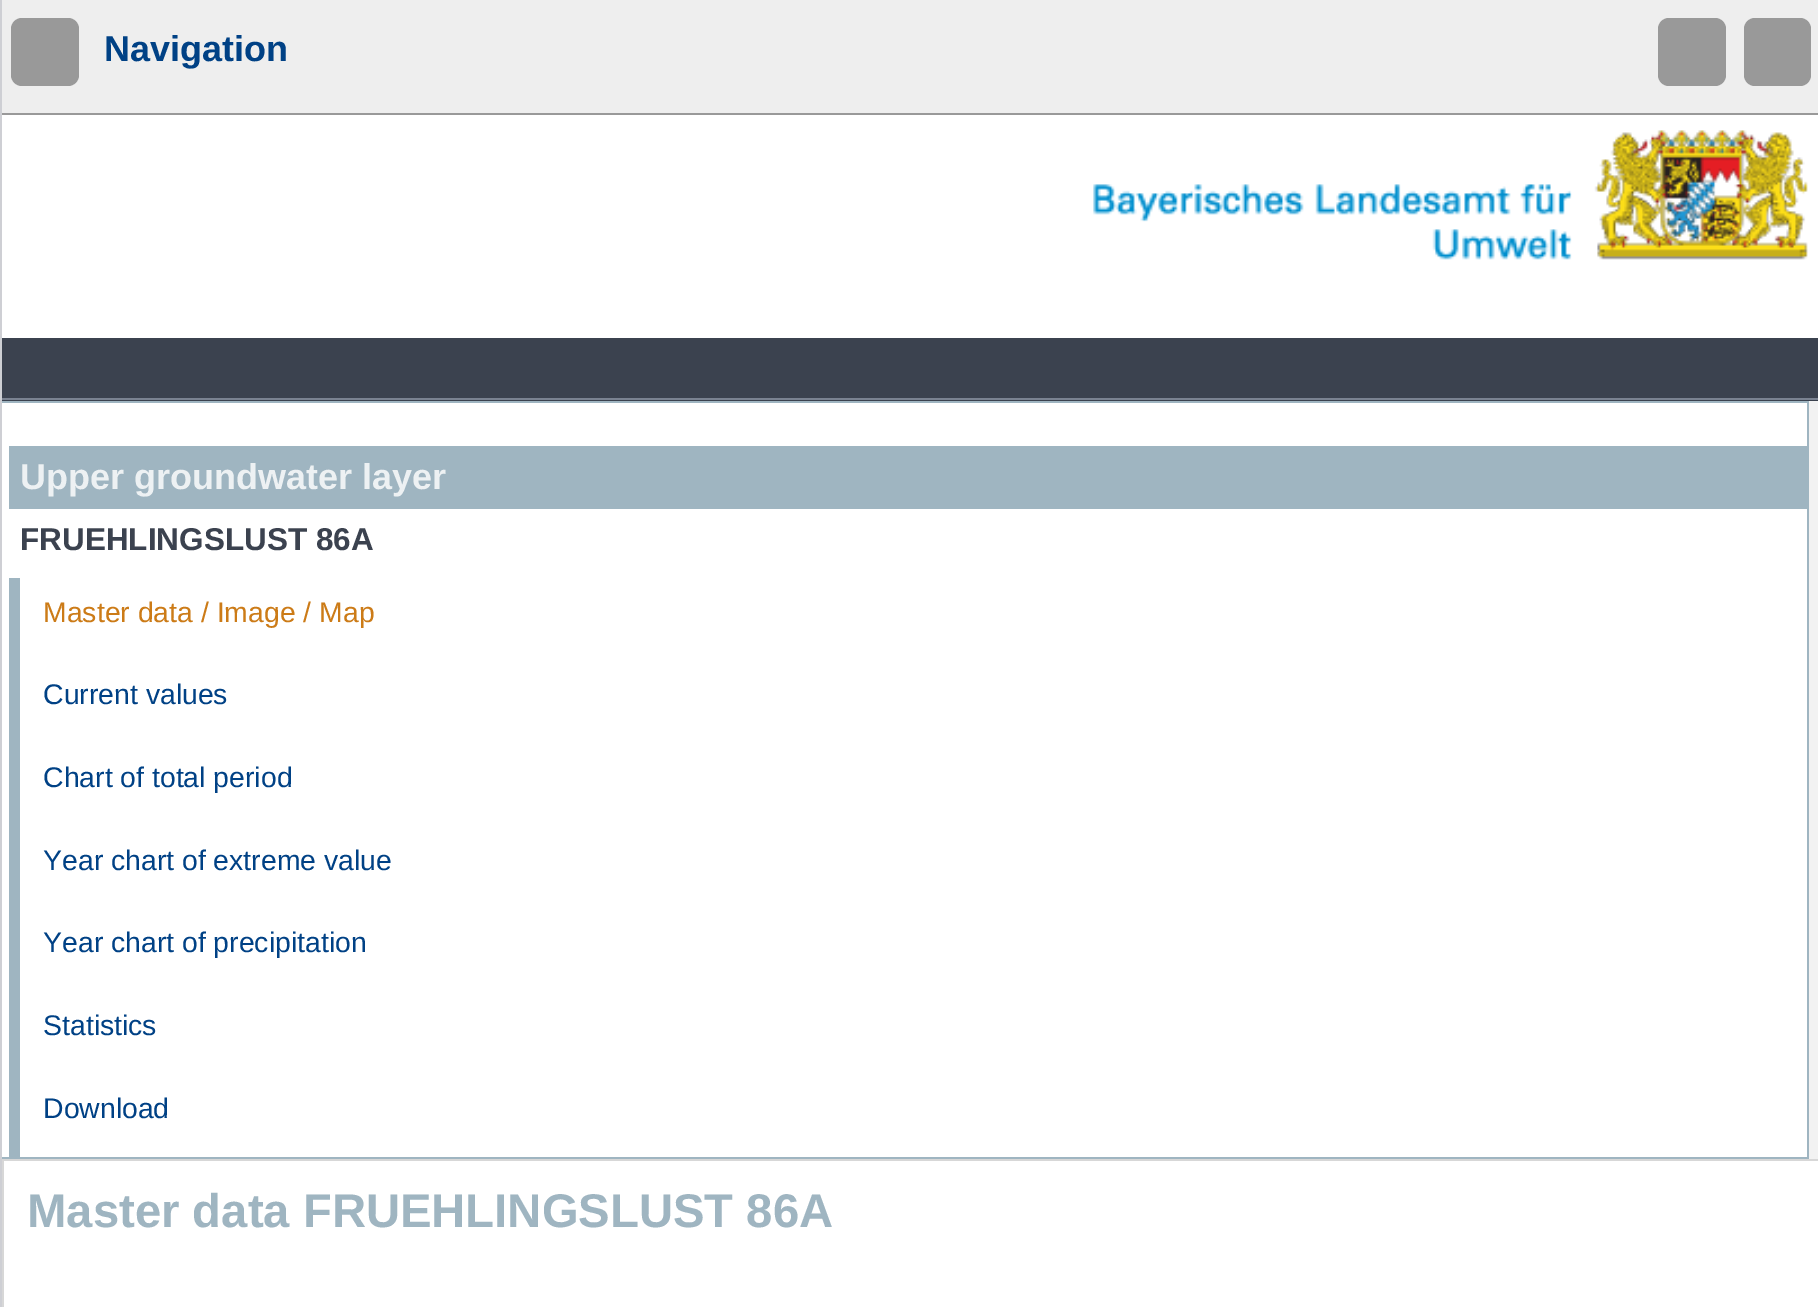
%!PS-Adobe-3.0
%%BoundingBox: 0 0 1818 1307
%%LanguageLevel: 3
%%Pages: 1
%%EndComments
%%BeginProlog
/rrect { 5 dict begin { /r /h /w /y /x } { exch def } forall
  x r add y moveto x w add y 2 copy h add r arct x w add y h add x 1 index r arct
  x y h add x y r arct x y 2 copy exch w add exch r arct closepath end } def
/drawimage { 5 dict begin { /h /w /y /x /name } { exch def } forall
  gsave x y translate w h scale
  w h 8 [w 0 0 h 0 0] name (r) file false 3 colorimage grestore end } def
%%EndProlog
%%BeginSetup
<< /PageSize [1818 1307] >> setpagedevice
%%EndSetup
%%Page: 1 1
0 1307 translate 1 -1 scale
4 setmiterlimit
1 setgray
0 0 1818 1307 rectfill
0.808 0.812 0.831 setrgbcolor
0 0 2 1307 rectfill
0.933 setgray
2 0 1816 113 rectfill
0.6 setgray
2 113 1816 2 rectfill
11 18 68 68 11 rrect fill
1658 18 68 68 11 rrect fill
1744 18 67 68 11 rrect fill
(images/1.raw) 1093 130 715 130 drawimage
0.231 0.259 0.31 setrgbcolor
2 338 1816 63 rectfill
0.478 0.51 0.569 setrgbcolor
2 398 1816 2 rectfill
0.949 setgray
1809 401 9 758 rectfill
0.624 0.71 0.757 setrgbcolor
2 401 1807 2 rectfill
1807 401 2 758 rectfill
2 1157 1807 2 rectfill
9 446 1798 63 rectfill
9 578 11 579 rectfill
0.843 setgray
2 1159 1816 2 rectfill
2 1159 2 148 rectfill
/LiberationSans-Bold [36 0 0 -36 0 0] selectfont
0 0.255 0.522 setrgbcolor
104 61 moveto (Navigation) show
0.929 0.945 0.953 setrgbcolor
20 489 moveto (Upper groundwater layer) show
/LiberationSans-Bold [31.5 0 0 -31.5 0 0] selectfont
0.231 0.259 0.31 setrgbcolor
20 550 moveto (FRUEHLINGSLUST 86A) show
/LiberationSans-Regular [28.4 0 0 -28.4 0 0] selectfont
0.8 0.482 0.09 setrgbcolor
43 622 moveto (Master data / Image / Map) show
0 0.255 0.522 setrgbcolor
43 704 moveto (Current values) show
43 787 moveto (Chart of total period) show
43 870 moveto (Year chart of extreme value) show
43 952 moveto (Year chart of precipitation) show
43 1035 moveto (Statistics) show
43 1118 moveto (Download) show
/LiberationSans-Bold [47.25 0 0 -47.25 0 0] selectfont
0.624 0.71 0.757 setrgbcolor
27 1227 moveto (Master data FRUEHLINGSLUST 86A) show
showpage
%%EOF
